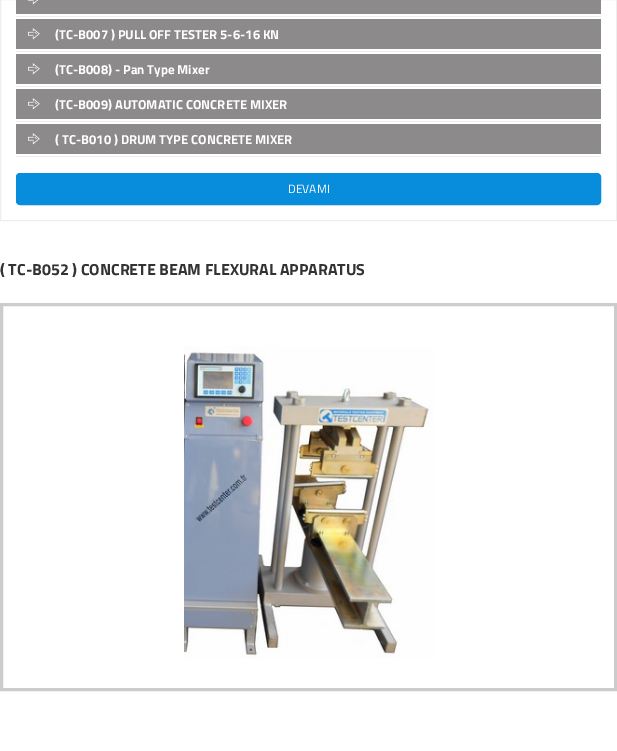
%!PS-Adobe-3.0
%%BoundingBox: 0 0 617 751
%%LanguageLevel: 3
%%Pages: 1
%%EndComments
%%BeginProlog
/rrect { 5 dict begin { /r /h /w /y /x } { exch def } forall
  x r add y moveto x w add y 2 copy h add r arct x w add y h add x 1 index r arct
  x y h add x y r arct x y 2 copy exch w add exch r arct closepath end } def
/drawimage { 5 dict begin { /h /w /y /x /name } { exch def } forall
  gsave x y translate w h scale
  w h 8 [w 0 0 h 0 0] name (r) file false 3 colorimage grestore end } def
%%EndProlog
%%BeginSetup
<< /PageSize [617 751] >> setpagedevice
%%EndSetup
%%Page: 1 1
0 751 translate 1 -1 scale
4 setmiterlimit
1 setgray
0 0 617 751 rectfill
0.933 setgray
0.5 -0.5 616 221 rectstroke
16 16 585 1 rectfill
0.549 0.541 0.541 setrgbcolor
16 0 585 14 rectfill
(images/1.raw) 28 0 11 5 drawimage
0.933 setgray
16 51 585 1 rectfill
0.549 0.541 0.541 setrgbcolor
16 19 585 30 rectfill
(images/2.raw) 28 28 12 12 drawimage
0.933 setgray
16 86 585 1 rectfill
0.549 0.541 0.541 setrgbcolor
16 54 585 30 rectfill
(images/2.raw) 28 63 12 12 drawimage
0.933 setgray
16 121 585 1 rectfill
0.549 0.541 0.541 setrgbcolor
16 89 585 30 rectfill
(images/2.raw) 28 98 12 12 drawimage
0.933 setgray
16 156 585 1 rectfill
0.549 0.541 0.541 setrgbcolor
16 124 585 30 rectfill
(images/2.raw) 28 133 12 12 drawimage
0.031 0.549 0.863 setrgbcolor
16.5 173.5 584 31 3.5 rrect gsave fill grestore
stroke
0.8 setgray
3 setlinewidth
1.5 304.5 614 385 rectstroke
(images/3.raw) 184 346 250 313 drawimage
/TitilliumWeb-Bold [13 0 0 -13 0 0] selectfont
1 setgray
55 39 moveto (\(TC-B007 \) PULL OFF TESTER 5-6-16 KN) show
55 74 moveto (\(TC-B008\) - Pan Type Mixer) show
55 109 moveto (\(TC-B009\) AUTOMATIC CONCRETE MIXER) show
55 144 moveto (\( TC-B010 \) DRUM TYPE CONCRETE MIXER) show
/TitilliumWeb-Regular [12 0 0 -12 0 0] selectfont
288 193 moveto (DEVAMI) show
/TitilliumWeb-Bold [16 0 0 -16 0 0] selectfont
0.2 setgray
0 275 moveto (\( TC-B052 \) CONCRETE BEAM FLEXURAL APPARATUS) show
showpage
%%EOF
